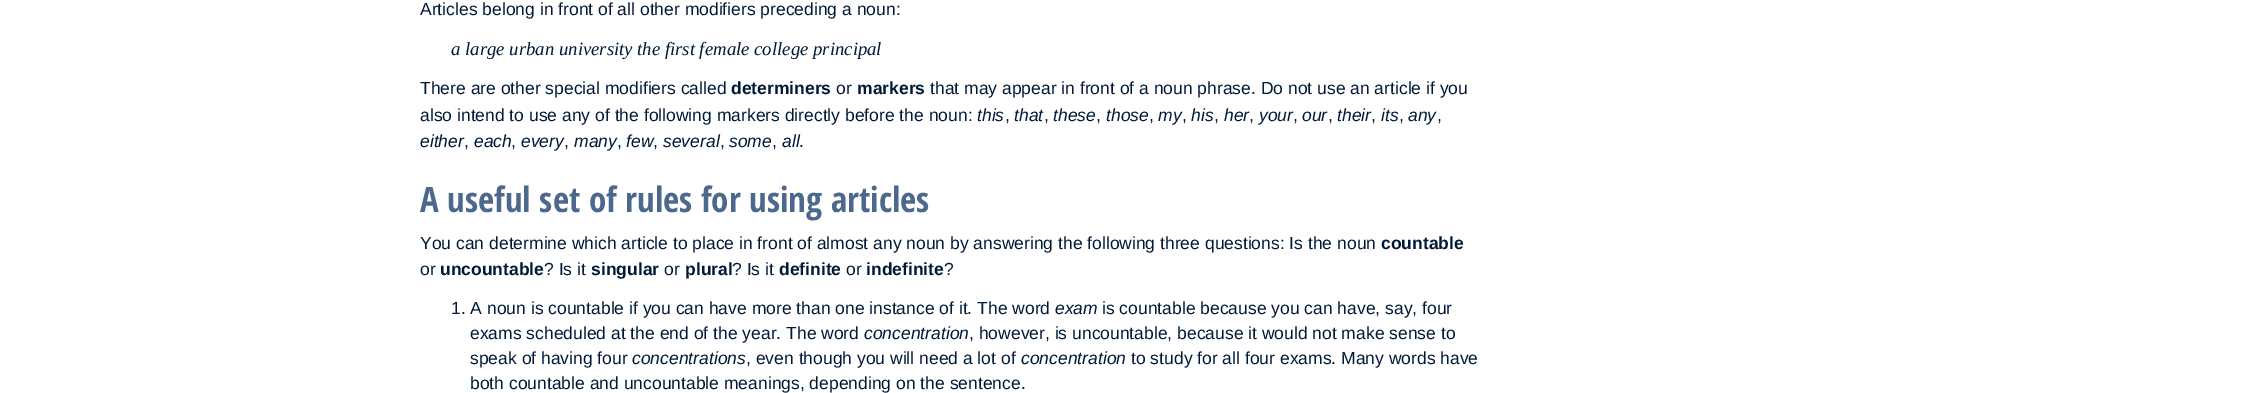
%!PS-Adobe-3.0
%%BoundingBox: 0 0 2264 393
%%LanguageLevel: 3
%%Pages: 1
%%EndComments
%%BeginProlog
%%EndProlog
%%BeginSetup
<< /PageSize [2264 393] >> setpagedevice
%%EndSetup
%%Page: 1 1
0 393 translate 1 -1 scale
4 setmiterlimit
1 setgray
0 0 2264 393 rectfill
/LiberationSans-Regular [17.5 0 0 -17.5 0 0] selectfont
0 0.098 0.216 setrgbcolor
420 15 moveto (Articles belong in front of all other modifiers preceding a noun:) show
/LiberationSerif-Italic [18.75 0 0 -18.75 0 0] selectfont
451 55 moveto (a large urban university) show
637 55 moveto (the first female college principal) show
/LiberationSans-Regular [17.5 0 0 -17.5 0 0] selectfont
420 94 moveto (There are other special modifiers called) show
/LiberationSans-Bold [17.5 0 0 -17.5 0 0] selectfont
731 94 moveto (determiners) show
/LiberationSans-Regular [17.5 0 0 -17.5 0 0] selectfont
836 94 moveto (or) show
/LiberationSans-Bold [17.5 0 0 -17.5 0 0] selectfont
857 94 moveto (markers) show
/LiberationSans-Regular [17.5 0 0 -17.5 0 0] selectfont
930 94 moveto (that may appear in front of a noun phrase. Do not use an article if you) show
420 121 moveto (also intend to use any of the following markers directly before the noun:) show
/LiberationSans-Italic [17.5 0 0 -17.5 0 0] selectfont
977 121 moveto (this) show
/LiberationSans-Regular [17.5 0 0 -17.5 0 0] selectfont
1005 121 moveto (,) show
/LiberationSans-Italic [17.5 0 0 -17.5 0 0] selectfont
1014 121 moveto (that) show
/LiberationSans-Regular [17.5 0 0 -17.5 0 0] selectfont
1044 121 moveto (,) show
/LiberationSans-Italic [17.5 0 0 -17.5 0 0] selectfont
1053 121 moveto (these) show
/LiberationSans-Regular [17.5 0 0 -17.5 0 0] selectfont
1096 121 moveto (,) show
/LiberationSans-Italic [17.5 0 0 -17.5 0 0] selectfont
1106 121 moveto (those) show
/LiberationSans-Regular [17.5 0 0 -17.5 0 0] selectfont
1149 121 moveto (,) show
/LiberationSans-Italic [17.5 0 0 -17.5 0 0] selectfont
1158 121 moveto (my) show
/LiberationSans-Regular [17.5 0 0 -17.5 0 0] selectfont
1182 121 moveto (,) show
/LiberationSans-Italic [17.5 0 0 -17.5 0 0] selectfont
1191 121 moveto (his) show
/LiberationSans-Regular [17.5 0 0 -17.5 0 0] selectfont
1214 121 moveto (,) show
/LiberationSans-Italic [17.5 0 0 -17.5 0 0] selectfont
1224 121 moveto (her) show
/LiberationSans-Regular [17.5 0 0 -17.5 0 0] selectfont
1249 121 moveto (,) show
/LiberationSans-Italic [17.5 0 0 -17.5 0 0] selectfont
1259 121 moveto (your) show
/LiberationSans-Regular [17.5 0 0 -17.5 0 0] selectfont
1293 121 moveto (,) show
/LiberationSans-Italic [17.5 0 0 -17.5 0 0] selectfont
1302 121 moveto (our) show
/LiberationSans-Regular [17.5 0 0 -17.5 0 0] selectfont
1328 121 moveto (,) show
/LiberationSans-Italic [17.5 0 0 -17.5 0 0] selectfont
1337 121 moveto (their) show
/LiberationSans-Regular [17.5 0 0 -17.5 0 0] selectfont
1371 121 moveto (,) show
/LiberationSans-Italic [17.5 0 0 -17.5 0 0] selectfont
1381 121 moveto (its) show
/LiberationSans-Regular [17.5 0 0 -17.5 0 0] selectfont
1399 121 moveto (,) show
/LiberationSans-Italic [17.5 0 0 -17.5 0 0] selectfont
1408 121 moveto (any) show
/LiberationSans-Regular [17.5 0 0 -17.5 0 0] selectfont
1437 121 moveto (,) show
/LiberationSans-Italic [17.5 0 0 -17.5 0 0] selectfont
420 147 moveto (either) show
/LiberationSans-Regular [17.5 0 0 -17.5 0 0] selectfont
464 147 moveto (,) show
/LiberationSans-Italic [17.5 0 0 -17.5 0 0] selectfont
474 147 moveto (each) show
/LiberationSans-Regular [17.5 0 0 -17.5 0 0] selectfont
511 147 moveto (,) show
/LiberationSans-Italic [17.5 0 0 -17.5 0 0] selectfont
521 147 moveto (every) show
/LiberationSans-Regular [17.5 0 0 -17.5 0 0] selectfont
564 147 moveto (,) show
/LiberationSans-Italic [17.5 0 0 -17.5 0 0] selectfont
574 147 moveto (many) show
/LiberationSans-Regular [17.5 0 0 -17.5 0 0] selectfont
617 147 moveto (,) show
/LiberationSans-Italic [17.5 0 0 -17.5 0 0] selectfont
626 147 moveto (few) show
/LiberationSans-Regular [17.5 0 0 -17.5 0 0] selectfont
653 147 moveto (,) show
/LiberationSans-Italic [17.5 0 0 -17.5 0 0] selectfont
663 147 moveto (several) show
/LiberationSans-Regular [17.5 0 0 -17.5 0 0] selectfont
720 147 moveto (,) show
/LiberationSans-Italic [17.5 0 0 -17.5 0 0] selectfont
729 147 moveto (some) show
/LiberationSans-Regular [17.5 0 0 -17.5 0 0] selectfont
772 147 moveto (,) show
/LiberationSans-Italic [17.5 0 0 -17.5 0 0] selectfont
782 147 moveto (all) show
/LiberationSans-Regular [17.5 0 0 -17.5 0 0] selectfont
799 147 moveto (.) show
/OpenSansCondensed-Bold [35 0 0 -35 0 0] selectfont
0.298 0.412 0.553 setrgbcolor
420 212 moveto (A useful set of rules for using articles) show
/LiberationSans-Regular [17.5 0 0 -17.5 0 0] selectfont
0 0.098 0.216 setrgbcolor
420 249 moveto (You can determine which article to place in front of almost any noun by answering the following three questions: Is the noun) show
/LiberationSans-Bold [17.5 0 0 -17.5 0 0] selectfont
1381 249 moveto (countable) show
/LiberationSans-Regular [17.5 0 0 -17.5 0 0] selectfont
420 275 moveto (or) show
/LiberationSans-Bold [17.5 0 0 -17.5 0 0] selectfont
440 275 moveto (uncountable) show
/LiberationSans-Regular [17.5 0 0 -17.5 0 0] selectfont
544 275 moveto (? Is it) show
/LiberationSans-Bold [17.5 0 0 -17.5 0 0] selectfont
591 275 moveto (singular) show
/LiberationSans-Regular [17.5 0 0 -17.5 0 0] selectfont
664 275 moveto (or) show
/LiberationSans-Bold [17.5 0 0 -17.5 0 0] selectfont
685 275 moveto (plural) show
/LiberationSans-Regular [17.5 0 0 -17.5 0 0] selectfont
732 275 moveto (? Is it) show
/LiberationSans-Bold [17.5 0 0 -17.5 0 0] selectfont
779 275 moveto (definite) show
/LiberationSans-Regular [17.5 0 0 -17.5 0 0] selectfont
846 275 moveto (or) show
/LiberationSans-Bold [17.5 0 0 -17.5 0 0] selectfont
866 275 moveto (indefinite) show
/LiberationSans-Regular [17.5 0 0 -17.5 0 0] selectfont
944 275 moveto (?) show
451 314 moveto (1. A noun is countable if you can have more than one instance of it. The word) show
/LiberationSans-Italic [17.5 0 0 -17.5 0 0] selectfont
1055 314 moveto (exam) show
/LiberationSans-Regular [17.5 0 0 -17.5 0 0] selectfont
1102 314 moveto (is countable because you can have, say, four) show
470 339 moveto (exams scheduled at the end of the year. The word) show
/LiberationSans-Italic [17.5 0 0 -17.5 0 0] selectfont
864 339 moveto (concentration) show
/LiberationSans-Regular [17.5 0 0 -17.5 0 0] selectfont
969 339 moveto (, however, is uncountable, because it would not make sense to) show
470 364 moveto (speak of having four) show
/LiberationSans-Italic [17.5 0 0 -17.5 0 0] selectfont
632 364 moveto (concentrations) show
/LiberationSans-Regular [17.5 0 0 -17.5 0 0] selectfont
746 364 moveto (, even though you will need a lot of) show
/LiberationSans-Italic [17.5 0 0 -17.5 0 0] selectfont
1021 364 moveto (concentration) show
/LiberationSans-Regular [17.5 0 0 -17.5 0 0] selectfont
1131 364 moveto (to study for all four exams. Many words have) show
470 389 moveto (both countable and uncountable meanings, depending on the sentence.) show
showpage
%%EOF
